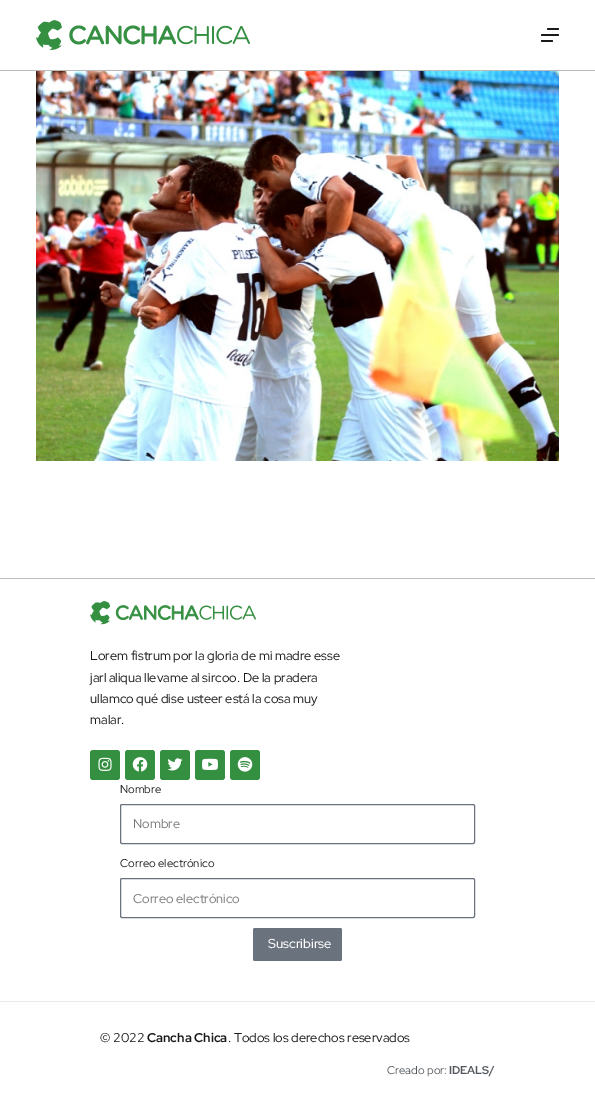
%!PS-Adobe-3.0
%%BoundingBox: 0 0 595 1106
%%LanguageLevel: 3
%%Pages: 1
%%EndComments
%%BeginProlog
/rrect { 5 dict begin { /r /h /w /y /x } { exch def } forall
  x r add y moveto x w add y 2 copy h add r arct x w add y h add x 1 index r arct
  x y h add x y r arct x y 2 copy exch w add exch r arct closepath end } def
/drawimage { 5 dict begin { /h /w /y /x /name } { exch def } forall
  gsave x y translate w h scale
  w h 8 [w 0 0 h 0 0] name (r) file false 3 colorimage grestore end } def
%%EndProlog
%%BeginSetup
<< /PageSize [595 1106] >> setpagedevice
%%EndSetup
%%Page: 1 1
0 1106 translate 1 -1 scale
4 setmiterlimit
1 setgray
0 0 595 1106 rectfill
0.733 setgray
0 70 595 1 rectfill
(images/1.raw) 36 20 214 30 drawimage
0.098 setgray
547 28 12 2 1 rrect fill
541 34 18 2 1 rrect fill
541 40 12 2 1 rrect fill
(images/2.raw) 36 71 523 390 drawimage
0.737 setgray
0 578 595 1 rectfill
(images/3.raw) 90 601 166 24 drawimage
0.204 0.561 0.255 setrgbcolor
90 750 30 30 3 rrect fill
(images/4.raw) 98 757 14 14 drawimage
125 750 30 30 3 rrect fill
(images/5.raw) 132 757 16 15 drawimage
160 750 30 30 3 rrect fill
(images/6.raw) 167 758 16 13 drawimage
195 750 30 30 3 rrect fill
(images/7.raw) 202 758 16 12 drawimage
230 750 30 30 3 rrect fill
(images/8.raw) 237 757 16 15 drawimage
0.412 0.447 0.49 setrgbcolor
120.5 804.5 354 39 1.5 rrect stroke
120.5 878.5 354 39 1.5 rrect stroke
253 928 89 33 2 rrect fill
0.914 setgray
0 1001 595 1 rectfill
/RedHatDisplay-Regular [12.75 0 0 -12.75 0 0] selectfont
0.098 setgray
90 660 moveto (Lorem fistrum por la gloria de mi madre esse) show
90 682 moveto (jarl aliqua llevame al sircoo. De la pradera) show
90 703 moveto (ullamco qué dise usteer está la cosa muy) show
90 724 moveto (malar.) show
/RedHatDisplay-Regular [11.25 0 0 -11.25 0 0] selectfont
120 793 moveto (Nombre) show
/RedHatDisplay-Regular [12.75 0 0 -12.75 0 0] selectfont
0.475 0.478 0.486 setrgbcolor
133 828 moveto (Nombre) show
/RedHatDisplay-Regular [11.25 0 0 -11.25 0 0] selectfont
0.098 setgray
120 867 moveto (Correo electrónico) show
/RedHatDisplay-Regular [12.75 0 0 -12.75 0 0] selectfont
0.475 0.478 0.486 setrgbcolor
133 903 moveto (Correo electrónico) show
/RedHatDisplay-Medium [13 0 0 -13 0 0] selectfont
1 setgray
268 948 moveto (Suscribirse) show
/RedHatDisplay-Regular [12.75 0 0 -12.75 0 0] selectfont
0.098 setgray
100 1042 moveto (© 2022) show
/RedHatDisplay-Bold [12.75 0 0 -12.75 0 0] selectfont
147 1042 moveto (Cancha Chica) show
/RedHatDisplay-Regular [12.75 0 0 -12.75 0 0] selectfont
228 1042 moveto (. Todos los derechos reservados) show
/RedHatDisplay-Regular [11.25 0 0 -11.25 0 0] selectfont
0.329 0.349 0.373 setrgbcolor
387 1074 moveto (Creado por:) show
/RedHatDisplay-Bold [11.25 0 0 -11.25 0 0] selectfont
449 1074 moveto (IDEALS/) show
showpage
%%EOF
